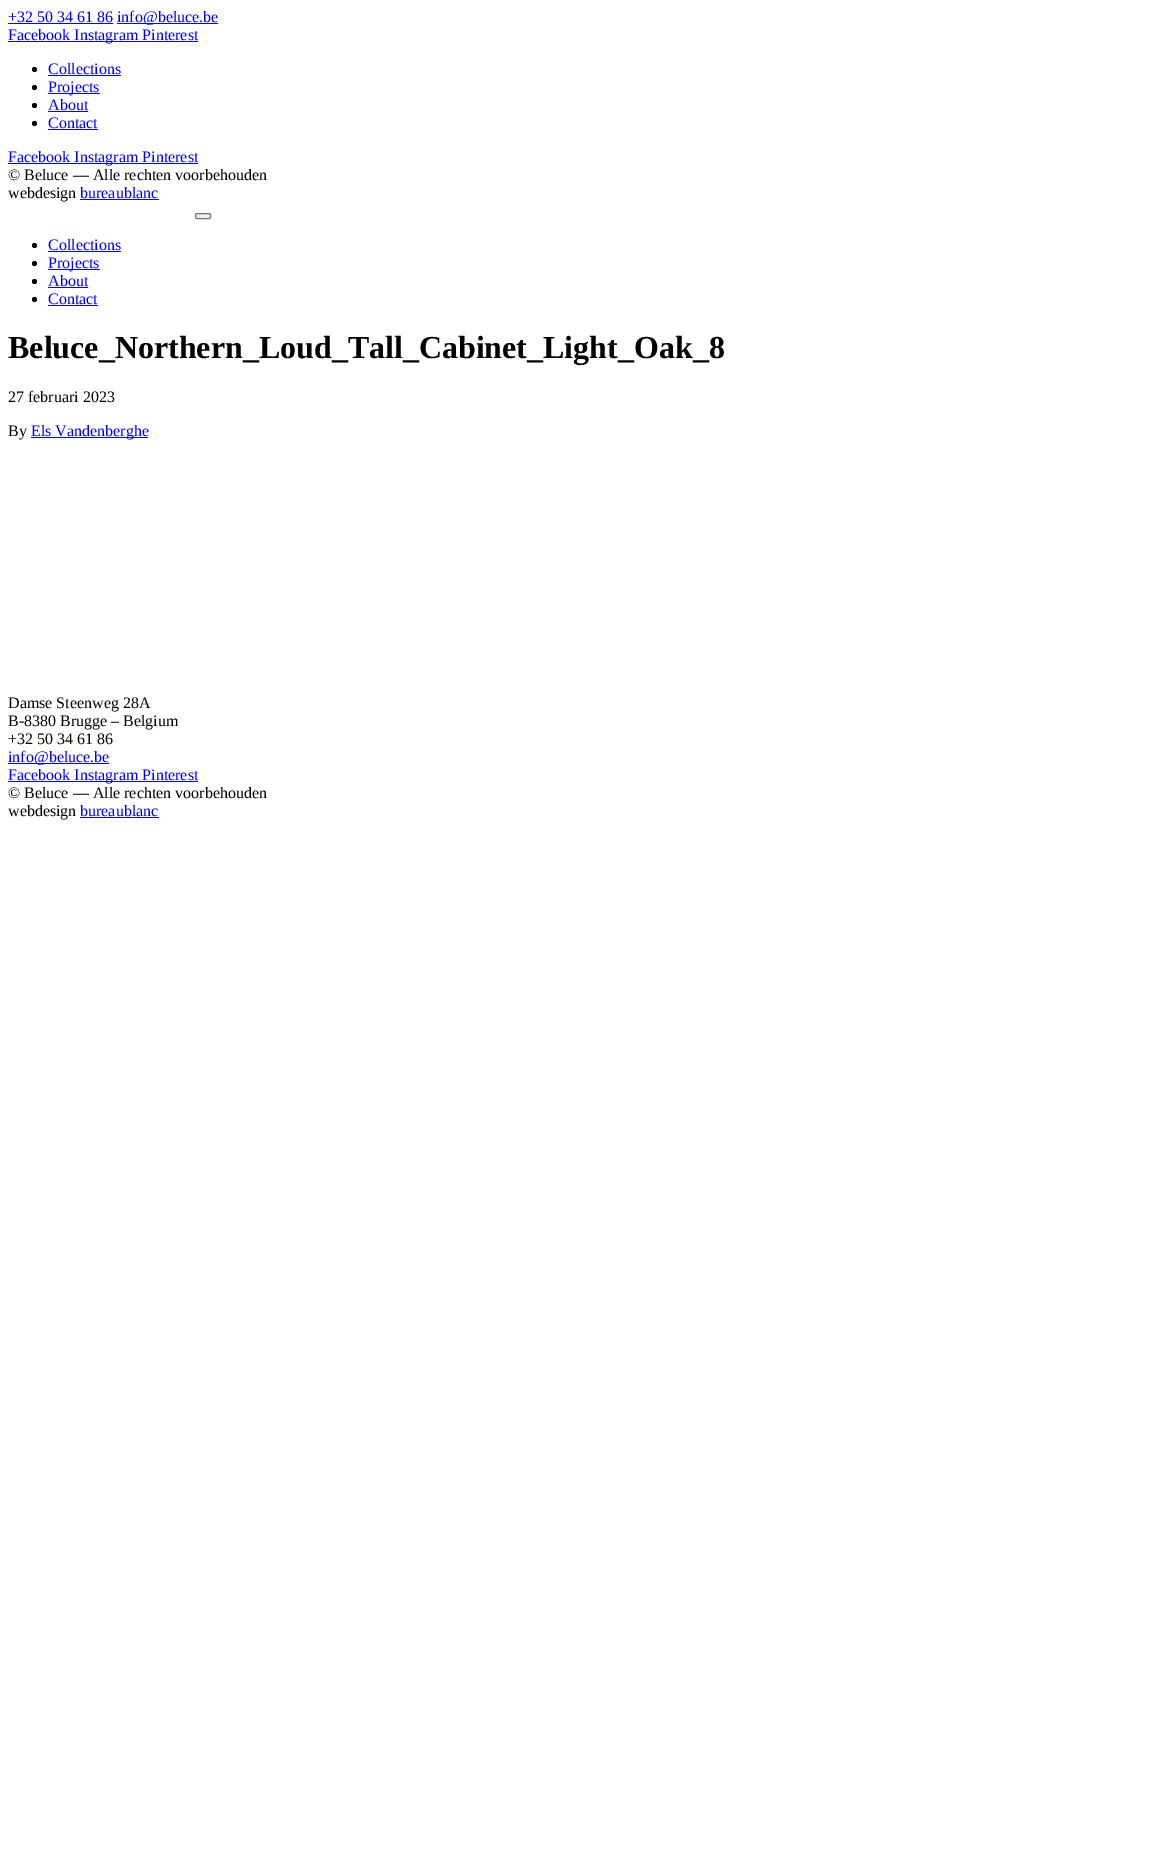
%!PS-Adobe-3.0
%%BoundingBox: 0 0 1176 1873
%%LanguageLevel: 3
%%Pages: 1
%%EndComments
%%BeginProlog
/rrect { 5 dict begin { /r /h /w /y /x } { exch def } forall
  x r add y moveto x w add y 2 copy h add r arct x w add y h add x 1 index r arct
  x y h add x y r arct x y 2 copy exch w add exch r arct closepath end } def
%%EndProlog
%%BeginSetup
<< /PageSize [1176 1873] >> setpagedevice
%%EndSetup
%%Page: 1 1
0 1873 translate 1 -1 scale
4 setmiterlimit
1 setgray
0 0 1176 1873 rectfill
0 0 0.933 setrgbcolor
8 23 105 1 rectfill
117 23 101 1 rectfill
8 41 190 1 rectfill
0 setgray
newpath 34.5 69.5 2.5 0 360 arc closepath fill
0 0 0.933 setrgbcolor
48 75 73 1 rectfill
0 setgray
newpath 34.5 87.5 2.5 0 360 arc closepath fill
0 0 0.933 setrgbcolor
48 93 52 1 rectfill
0 setgray
newpath 34.5 105.5 2.5 0 360 arc closepath fill
0 0 0.933 setrgbcolor
48 111 40 1 rectfill
0 setgray
newpath 34.5 123.5 2.5 0 360 arc closepath fill
0 0 0.933 setrgbcolor
48 129 50 1 rectfill
8 163 190 1 rectfill
80 199 79 1 rectfill
0.937 setgray
195.5 213.5 15 5 1.5 rrect gsave fill grestore
0.463 setgray
stroke
0 setgray
newpath 34.5 245.5 2.5 0 360 arc closepath fill
0 0 0.933 setrgbcolor
48 251 73 1 rectfill
0 setgray
newpath 34.5 263.5 2.5 0 360 arc closepath fill
0 0 0.933 setrgbcolor
48 269 52 1 rectfill
0 setgray
newpath 34.5 281.5 2.5 0 360 arc closepath fill
0 0 0.933 setrgbcolor
48 287 40 1 rectfill
0 setgray
newpath 34.5 299.5 2.5 0 360 arc closepath fill
0 0 0.933 setrgbcolor
48 305 50 1 rectfill
31 437 117 1 rectfill
8 763 101 1 rectfill
8 781 190 1 rectfill
80 817 79 1 rectfill
/LiberationSerif-Regular [16 0 0 -16 0 0] selectfont
8 22 moveto (+32 50 34 61 86) show
117 22 moveto (info@beluce.be) show
8 40 moveto (Facebook Instagram Pinterest) show
48 74 moveto (Collections) show
48 92 moveto (Projects) show
48 110 moveto (About) show
48 128 moveto (Contact) show
8 162 moveto (Facebook Instagram Pinterest) show
0 setgray
8 180 moveto (© Beluce — Alle rechten voorbehouden) show
8 198 moveto (webdesign) show
0 0 0.933 setrgbcolor
80 198 moveto (bureaublanc) show
48 250 moveto (Collections) show
48 268 moveto (Projects) show
48 286 moveto (About) show
48 304 moveto (Contact) show
/LiberationSerif-Bold [32 0 0 -32 0 0] selectfont
0 setgray
8 358 moveto (Beluce_Northern_Loud_Tall_Cabinet_Light_Oak_8) show
/LiberationSerif-Regular [16 0 0 -16 0 0] selectfont
8 402 moveto (27 februari 2023) show
8 436 moveto (By) show
0 0 0.933 setrgbcolor
31 436 moveto (Els Vandenberghe) show
0 setgray
8 708 moveto (Damse Steenweg 28A) show
8 726 moveto (B-8380 Brugge – Belgium) show
8 744 moveto (+32 50 34 61 86) show
0 0 0.933 setrgbcolor
8 762 moveto (info@beluce.be) show
8 780 moveto (Facebook Instagram Pinterest) show
0 setgray
8 798 moveto (© Beluce — Alle rechten voorbehouden) show
8 816 moveto (webdesign) show
0 0 0.933 setrgbcolor
80 816 moveto (bureaublanc) show
showpage
%%EOF
